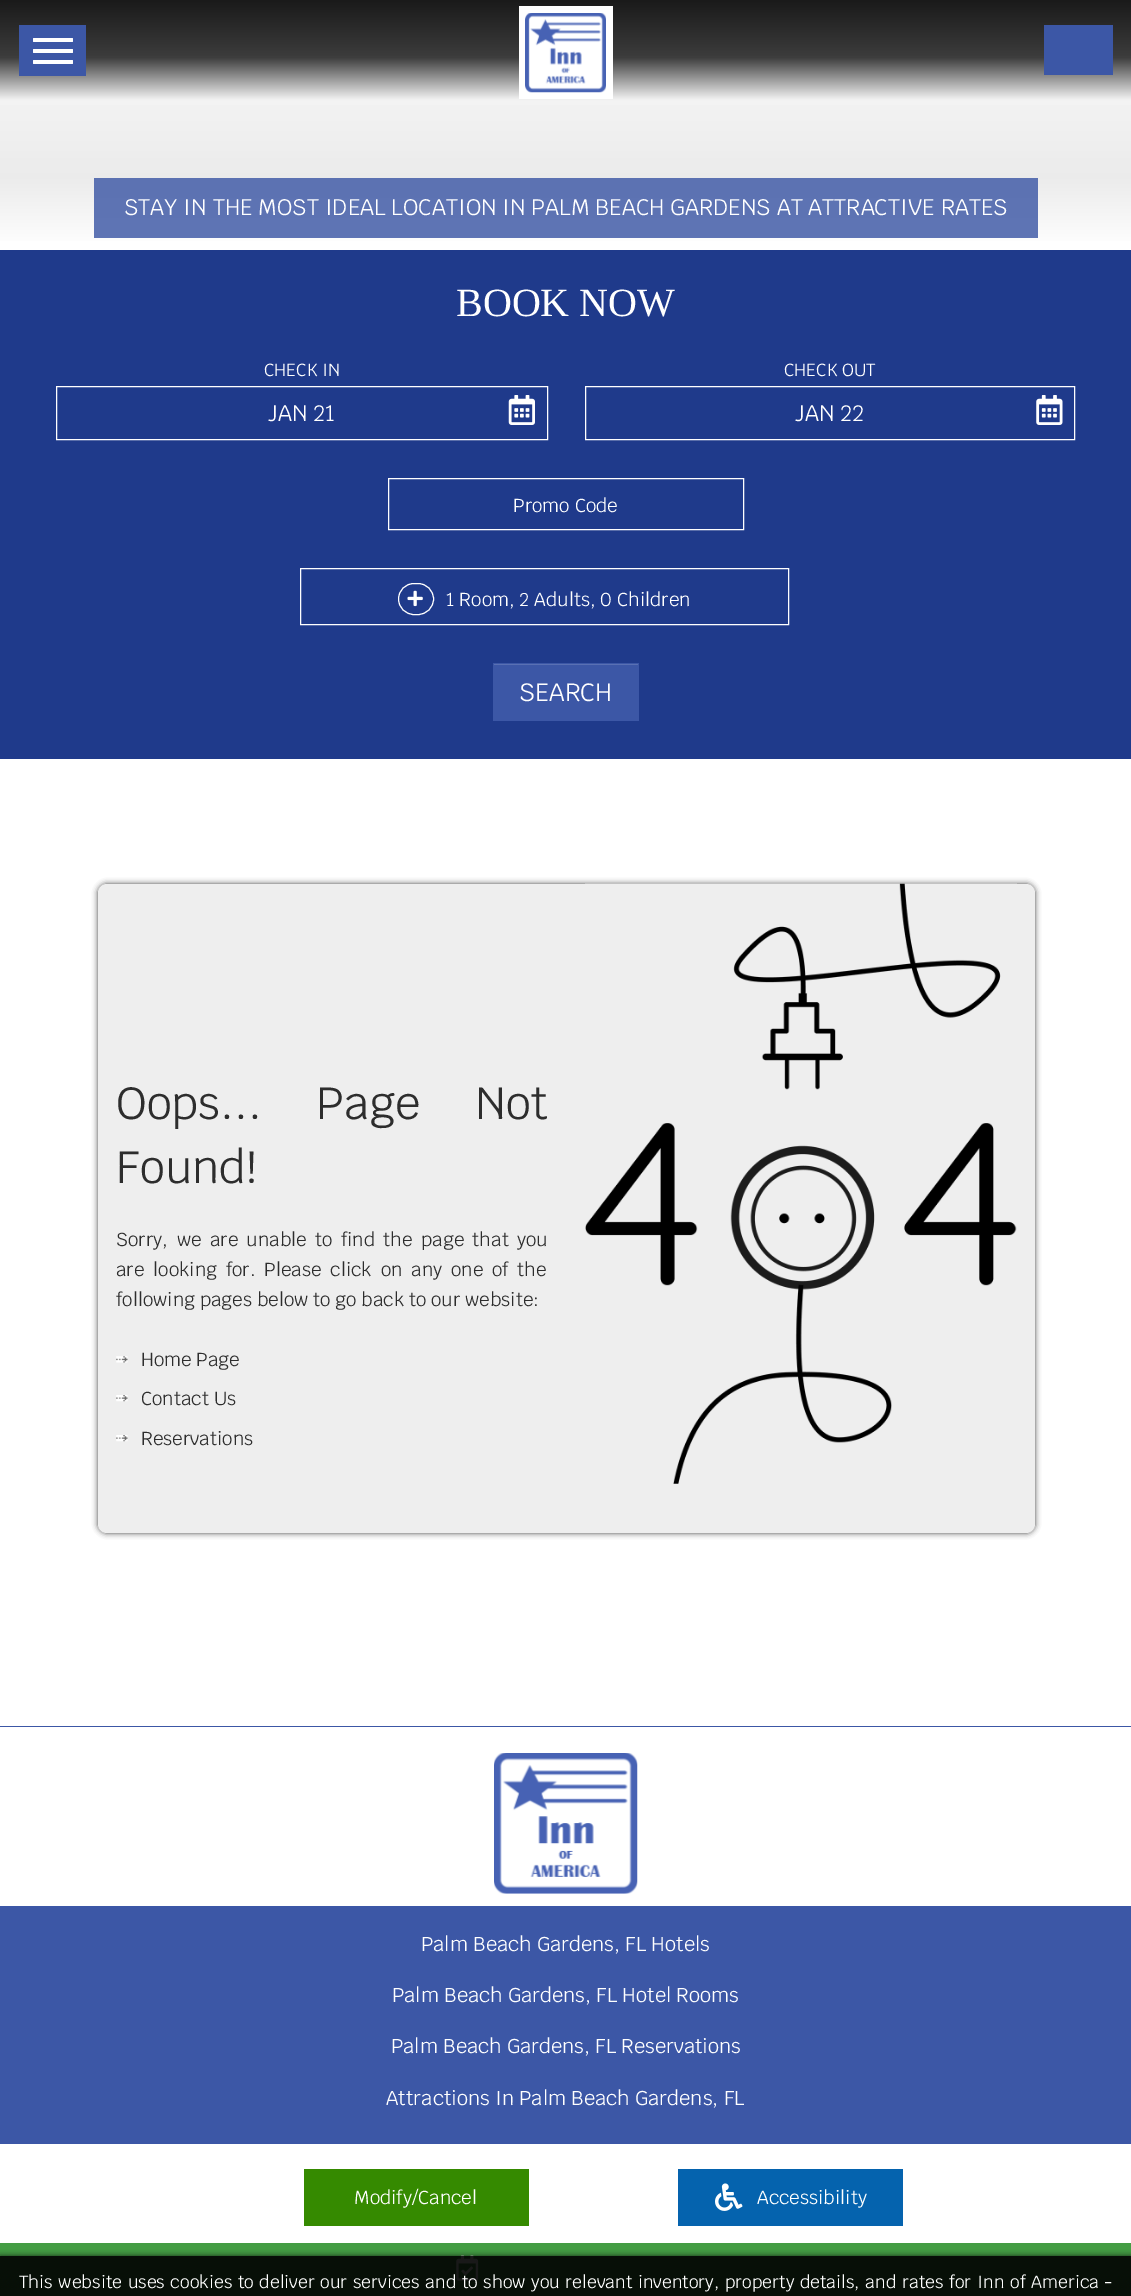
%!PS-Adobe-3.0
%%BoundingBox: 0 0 1131 2296
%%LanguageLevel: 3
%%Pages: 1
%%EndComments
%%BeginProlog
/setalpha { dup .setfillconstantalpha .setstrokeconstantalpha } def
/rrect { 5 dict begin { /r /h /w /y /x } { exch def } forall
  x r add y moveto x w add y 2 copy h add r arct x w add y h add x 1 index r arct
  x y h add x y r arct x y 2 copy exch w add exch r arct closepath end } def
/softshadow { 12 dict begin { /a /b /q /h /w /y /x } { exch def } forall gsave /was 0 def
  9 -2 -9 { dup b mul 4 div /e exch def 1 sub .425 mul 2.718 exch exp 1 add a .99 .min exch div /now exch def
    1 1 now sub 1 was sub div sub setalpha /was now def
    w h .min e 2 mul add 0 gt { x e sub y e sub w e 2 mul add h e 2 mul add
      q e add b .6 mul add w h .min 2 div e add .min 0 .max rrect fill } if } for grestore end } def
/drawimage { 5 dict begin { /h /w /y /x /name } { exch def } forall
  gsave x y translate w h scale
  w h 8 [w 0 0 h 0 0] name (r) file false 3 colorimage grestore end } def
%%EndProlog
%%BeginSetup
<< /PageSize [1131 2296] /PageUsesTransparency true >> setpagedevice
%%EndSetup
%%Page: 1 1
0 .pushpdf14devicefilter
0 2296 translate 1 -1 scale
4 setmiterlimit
1 setgray
0 0 1131 2296 rectfill
gsave newpath 0 0 moveto 1131 0 lineto 1131 241 lineto 0 241 lineto closepath clip newpath
<< /ShadingType 2 /ColorSpace /DeviceRGB /Coords [566 0 566 250] /Extend [true true] /Function << /FunctionType 3 /Domain [0 1] /Functions [<< /FunctionType 2 /Domain [0 1] /C0 [0.102 0.102 0.102] /C1 [0.239 0.239 0.239] /N 1 >> << /FunctionType 2 /Domain [0 1] /C0 [0.239 0.239 0.239] /C1 [0.953 0.953 0.953] /N 1 >> << /FunctionType 2 /Domain [0 1] /C0 [0.953 0.953 0.953] /C1 [0.922 0.922 0.922] /N 1 >> << /FunctionType 2 /Domain [0 1] /C0 [0.922 0.922 0.922] /C1 [1 1 1] /N 1 >>] /Bounds [0.23 0.4 0.71] /Encode [0 1 0 1 0 1 0 1] >> >> shfill grestore
519 6 94 93 rectfill
(images/1.raw) 525 13 81 80 drawimage
0.235 0.341 0.651 setrgbcolor
19 25 67 51 rectfill
1 setgray
33 38 40 4 1 rrect fill
33 49 40 4 1 rrect fill
33 60 40 4 1 rrect fill
0.235 0.341 0.651 setrgbcolor
1044 25 69 50 rectfill
gsave newpath 94 178 moveto 1038 178 lineto 1038 238 lineto 94 238 lineto closepath clip newpath
<< /ShadingType 2 /ColorSpace /DeviceRGB /Coords [566 0 566 250] /Extend [true true] /Function << /FunctionType 3 /Domain [0 1] /Functions [<< /FunctionType 2 /Domain [0 1] /C0 [0.212 0.298 0.553] /C1 [0.235 0.322 0.576] /N 1 >> << /FunctionType 2 /Domain [0 1] /C0 [0.235 0.322 0.576] /C1 [0.365 0.451 0.706] /N 1 >> << /FunctionType 2 /Domain [0 1] /C0 [0.365 0.451 0.706] /C1 [0.361 0.447 0.698] /N 1 >> << /FunctionType 2 /Domain [0 1] /C0 [0.361 0.447 0.698] /C1 [0.373 0.459 0.714] /N 1 >>] /Bounds [0.23 0.4 0.71] /Encode [0 1 0 1 0 1 0 1] >> >> shfill grestore
0.122 0.227 0.545 setrgbcolor
0 250 1131 509 rectfill
1 setgray
56.5 386.5 491 53 rectstroke
(images/2.raw) 508 395 27 30 drawimage
585.5 386.5 489 53 rectstroke
(images/3.raw) 1036 395 27 30 drawimage
388.5 478.5 355 51 rectstroke
300.5 568.5 488 56 rectstroke
398.5 583.5 35 31 15.5 rrect stroke
(images/4.raw) 407 590 16 17 drawimage
0.235 0.341 0.651 setrgbcolor
493 663 146 58 rectfill
0.349 0.439 0.702 setrgbcolor
494 664 144 1 rectfill
0 setgray
98 884 937 649 9 3 0.75 softshadow
0.933 setgray
98 884 937 649 9 rrect fill
(images/5.raw) 116 1356 12 7 drawimage
(images/6.raw) 116 1395 12 7 drawimage
(images/6.raw) 116 1435 12 7 drawimage
(images/7.raw) 585 883 432 601 drawimage
0.235 0.341 0.651 setrgbcolor
0 1726 1131 1 rectfill
(images/8.raw) 494 1753 144 141 drawimage
0 1906 1131 238 rectfill
0.208 0.541 0 setrgbcolor
304 2169 225 57 rectfill
0.02 0.388 0.682 setrgbcolor
678 2169 225 57 rectfill
(images/9.raw) 715 2183 28 28 drawimage
0.267 0.616 0.267 setrgbcolor
0 2243 1131 53 rectfill
(images/10.raw) 456 2255 23 26 drawimage
gsave
newpath 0 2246 moveto 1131 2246 lineto 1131 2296 lineto 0 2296 lineto closepath 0 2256 moveto 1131 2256 lineto 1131 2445 lineto 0 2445 lineto closepath eoclip newpath
0 setgray
0 2256 1131 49 0 3 0.75 softshadow
grestore
0.9 setalpha
0 setgray
0 2256 1131 40 rectfill
/Krub-Regular [22.5 0 0 -22.5 0 0] selectfont
1 setalpha
1 setgray
124 215 moveto (STAY IN THE MOST IDEAL LOCATION IN PALM BEACH GARDENS AT ATTRACTIVE RATES) show
/LiberationSerif-Regular [40 0 0 -40 0 0] selectfont
456 316 moveto (BOOK NOW) show
/Krub-Regular [17.5 0 0 -17.5 0 0] selectfont
264 376 moveto (CHECK IN) show
/Krub-Regular [22.5 0 0 -22.5 0 0] selectfont
268 421 moveto (JAN 21) show
/Krub-Regular [17.5 0 0 -17.5 0 0] selectfont
784 376 moveto (CHECK OUT) show
/Krub-Regular [22.5 0 0 -22.5 0 0] selectfont
795 421 moveto (JAN 22) show
/Krub-Regular [18.75 0 0 -18.75 0 0] selectfont
513 512 moveto (Promo Code) show
446 606 moveto (1 Room, 2 Adults, 0 Children) show
/Krub-Regular [25 0 0 -25 0 0] selectfont
519 701 moveto (SEARCH) show
/Krub-Regular [45 0 0 -45 0 0] selectfont
0.176 setgray
116 1119 moveto 43 0 32 (Oops... Page Not) widthshow
116 1183 moveto (Found!) show
/Krub-Regular [18.75 0 0 -18.75 0 0] selectfont
116 1246 moveto 3.5 0 32 (Sorry, we are unable to find the page that you) widthshow
116 1276 moveto 4 0 32 (are looking for. Please click on any one of the) widthshow
116 1306 moveto (following pages below to go back to our website:) show
141 1366 moveto (Home Page) show
141 1405 moveto (Contact Us) show
141 1445 moveto (Reservations) show
/Krub-Regular [20 0 0 -20 0 0] selectfont
1 setgray
421 1951 moveto (Palm Beach Gardens, FL Hotels) show
392 2002 moveto (Palm Beach Gardens, FL Hotel Rooms) show
391 2053 moveto (Palm Beach Gardens, FL Reservations) show
386 2105 moveto (Attractions In Palm Beach Gardens, FL) show
/Krub-Regular [18.75 0 0 -18.75 0 0] selectfont
354 2204 moveto (Modify/Cancel) show
757 2204 moveto (Accessibility) show
/Krub-Regular [17.5 0 0 -17.5 0 0] selectfont
19 2288 moveto 1 0 32 (This website uses cookies to deliver our services and to show you relevant inventory, property details, and rates for) widthshow
977 2288 moveto 1 0 32 (Inn of America -) widthshow
.poppdf14devicefilter showpage
%%EOF
